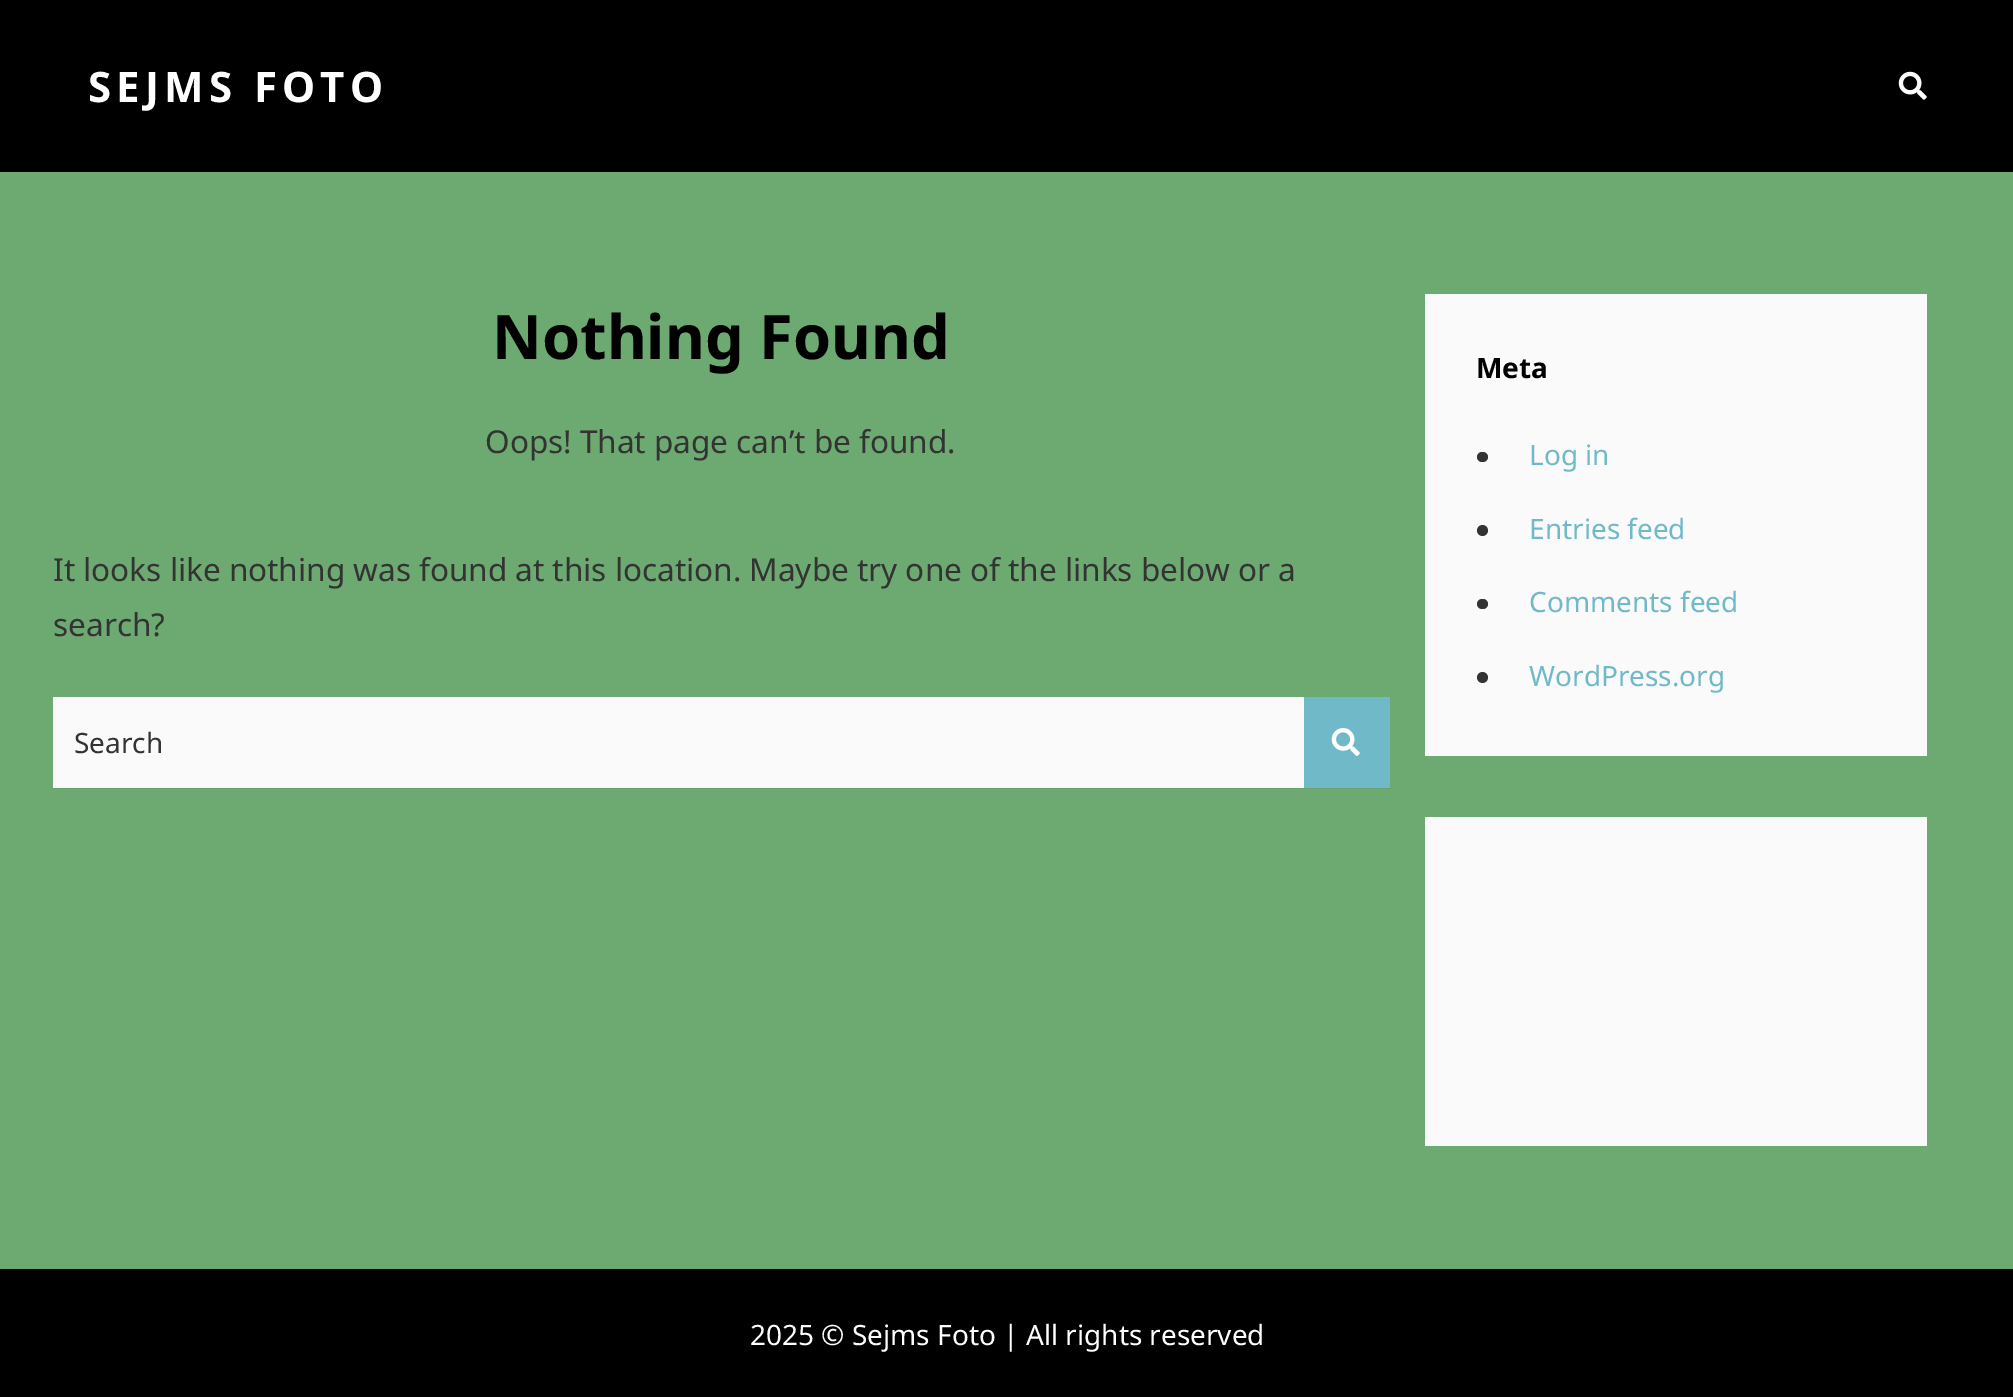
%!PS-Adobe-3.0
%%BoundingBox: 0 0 2013 1397
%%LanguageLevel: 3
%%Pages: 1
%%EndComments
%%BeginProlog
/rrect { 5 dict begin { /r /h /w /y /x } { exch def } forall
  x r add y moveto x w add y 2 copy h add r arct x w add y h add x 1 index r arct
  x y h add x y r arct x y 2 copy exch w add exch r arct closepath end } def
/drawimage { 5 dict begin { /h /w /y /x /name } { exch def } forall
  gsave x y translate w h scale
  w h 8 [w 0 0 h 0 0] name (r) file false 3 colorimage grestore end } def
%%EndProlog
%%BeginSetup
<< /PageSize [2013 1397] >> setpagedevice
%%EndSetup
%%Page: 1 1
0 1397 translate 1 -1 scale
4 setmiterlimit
0.427 0.667 0.447 setrgbcolor
0 0 2013 1397 rectfill
0 setgray
0 0 2013 172 rectfill
(images/1.raw) 1898 71 29 29 drawimage
0.408 0.635 0.424 setrgbcolor
newpath 53 788 moveto 53 789 lineto 1390 789 lineto 1390 698 lineto 1390 788 lineto closepath fill
0.98 setgray
53 697 1251 91 rectfill
0.435 0.725 0.784 setrgbcolor
1304 697 86 91 rectfill
(images/2.raw) 1331 728 29 28 drawimage
0.98 setgray
1425 294 502 462 rectfill
0.2 setgray
1477 452 11 10 5 rrect fill
newpath 1482.5 530.5 5.5 0 360 arc closepath fill
1477 599 11 10 5 rrect fill
newpath 1482.5 677.5 5.5 0 360 arc closepath fill
0.98 setgray
1425 817 502 329 rectfill
0 setgray
0 1269 2013 128 rectfill
/NotoSans-Bold [42 0 0 -42 0 0] selectfont
1 setgray
88 102 moveto 5.25 0 (SEJMS FOTO) ashow
/NotoSans-Bold [61.25 0 0 -61.25 0 0] selectfont
0 setgray
492 359 moveto (Nothing Found) show
/NotoSans-Regular [31.5 0 0 -31.5 0 0] selectfont
0.2 setgray
485 453 moveto (Oops! That page can’t be found.) show
53 581 moveto (It looks like nothing was found at this location. Maybe try one of the links below or a) show
53 636 moveto (search?) show
/NotoSans-Regular [28 0 0 -28 0 0] selectfont
74 753 moveto (Search) show
/NotoSans-Bold [28 0 0 -28 0 0] selectfont
0 setgray
1476 378 moveto (Meta) show
/NotoSans-Regular [28 0 0 -28 0 0] selectfont
0.435 0.725 0.784 setrgbcolor
1529 465 moveto (Log in) show
1529 539 moveto (Entries feed) show
1529 612 moveto (Comments feed) show
1529 686 moveto (WordPress.org) show
1 setgray
750 1345 moveto (2025 © Sejms Foto | All rights reserved) show
showpage
%%EOF
